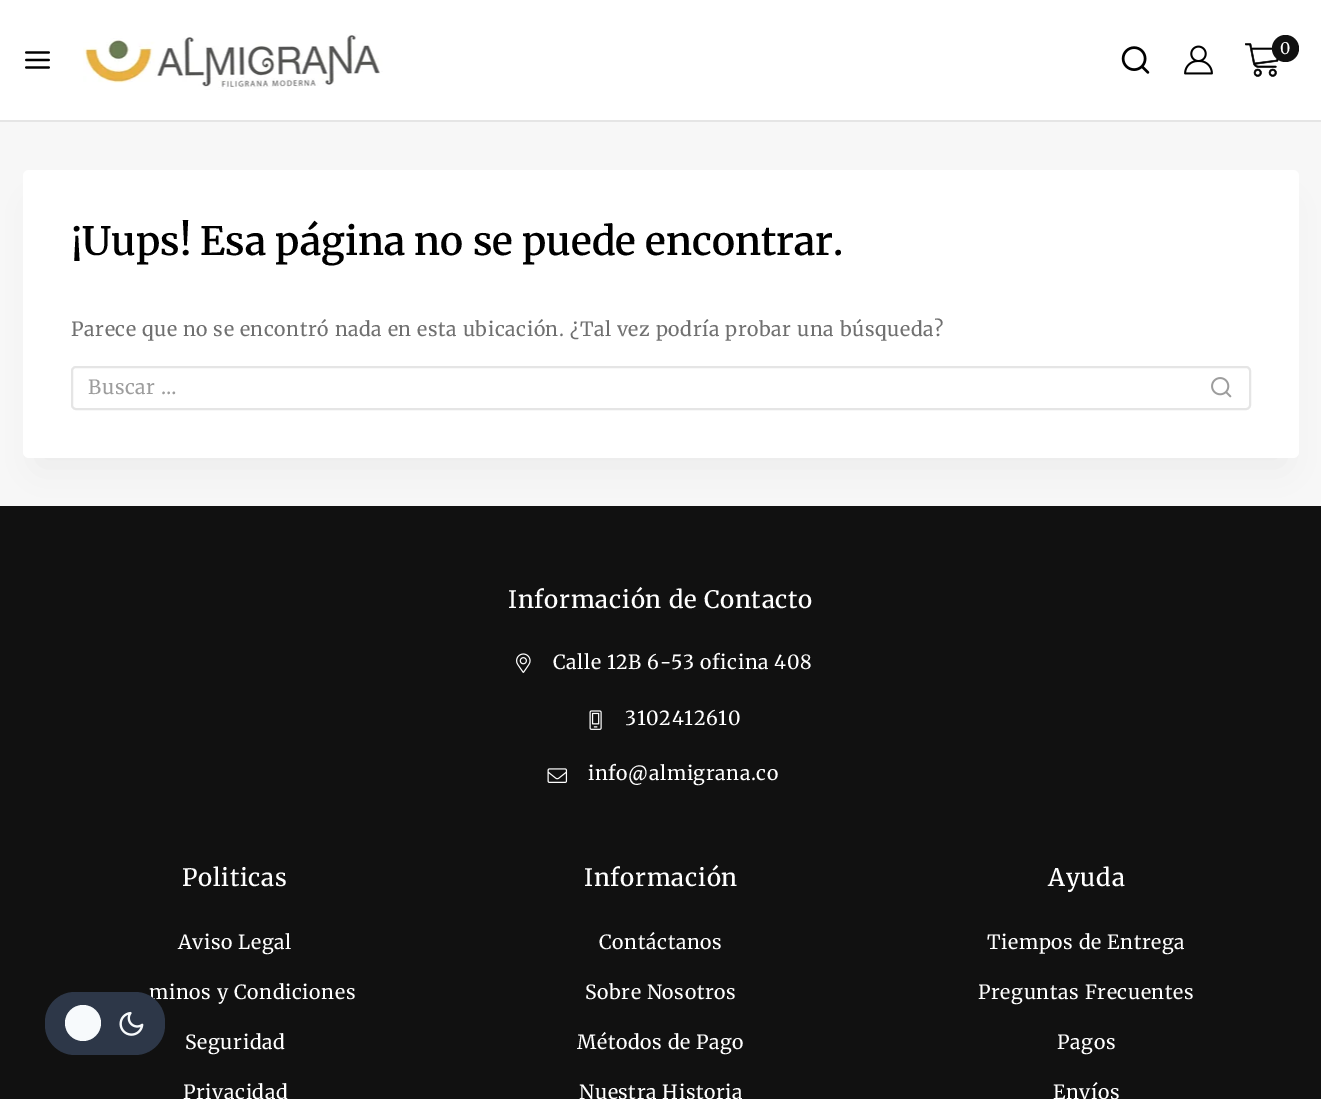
%!PS-Adobe-3.0
%%BoundingBox: 0 0 1321 1099
%%LanguageLevel: 3
%%Pages: 1
%%EndComments
%%BeginProlog
/setalpha { dup .setfillconstantalpha .setstrokeconstantalpha } def
/rrect { 5 dict begin { /r /h /w /y /x } { exch def } forall
  x r add y moveto x w add y 2 copy h add r arct x w add y h add x 1 index r arct
  x y h add x y r arct x y 2 copy exch w add exch r arct closepath end } def
/softshadow { 12 dict begin { /a /b /q /h /w /y /x } { exch def } forall gsave /was 0 def
  9 -2 -9 { dup b mul 4 div /e exch def 1 sub .425 mul 2.718 exch exp 1 add a .99 .min exch div /now exch def
    1 1 now sub 1 was sub div sub setalpha /was now def
    w h .min e 2 mul add 0 gt { x e sub y e sub w e 2 mul add h e 2 mul add
      q e add b .6 mul add w h .min 2 div e add .min 0 .max rrect fill } if } for grestore end } def
/drawimage { 5 dict begin { /h /w /y /x /name } { exch def } forall
  gsave x y translate w h scale
  w h 8 [w 0 0 h 0 0] name (r) file false 3 colorimage grestore end } def
%%EndProlog
%%BeginSetup
<< /PageSize [1321 1099] /PageUsesTransparency true >> setpagedevice
%%EndSetup
%%Page: 1 1
0 .pushpdf14devicefilter
0 1099 translate 1 -1 scale
4 setmiterlimit
0.969 setgray
0 0 1321 1099 rectfill
1 setgray
0 0 1321 120 rectfill
0.898 setgray
0 120 1321 2 rectfill
(images/1.raw) 25 51 25 18 drawimage
(images/2.raw) 83 34 300 56 drawimage
(images/3.raw) 1121 46 29 28 drawimage
(images/4.raw) 1184 45 29 30 drawimage
(images/5.raw) 1245 43 34 34 drawimage
0.067 setgray
newpath 1285.5 48.5 13.5 0 360 arc closepath fill
0 506 1321 593 rectfill
0 setgray
38 207 1246 258 0 19 0.05 softshadow
1 setgray
23 170 1276 288 6 rrect fill
0.898 setgray
2 setlinewidth
72 367 1178 42 4 rrect stroke
(images/6.raw) 1211 377 21 21 drawimage
(images/7.raw) 516 653 15 20 drawimage
(images/8.raw) 589 710 13 20 drawimage
(images/9.raw) 547 768 21 15 drawimage
/Merriweather-Regular [16 0 0 -16 0 0] selectfont
1 setgray
1280 54 moveto (0) show
/Merriweather-SemiBold [39 0 0 -39 0 0] selectfont
0 setgray
71 255 moveto (¡Uups! Esa página no se puede encontrar.) show
/Merriweather-Regular [19.5 0 0 -19.5 0 0] selectfont
0.439 setgray
71 336 moveto 0.6 0 (Parece que no se encontró nada en esta ubicación. ¿Tal vez podría probar una búsqueda?) ashow
0.616 setgray
88 394 moveto 0.6 0 (Buscar …) ashow
/Merriweather-Medium [24 0 0 -24 0 0] selectfont
1 setgray
508 608 moveto 0.75 0 (Información de Contacto) ashow
/Merriweather-Regular [19.5 0 0 -19.5 0 0] selectfont
553 669 moveto 0.6 0 (Calle 12B 6-53 oficina 408) ashow
625 725 moveto 0.6 0 (3102412610) ashow
588 780 moveto 0.6 0 (info@almigrana.co) ashow
/Merriweather-Medium [24 0 0 -24 0 0] selectfont
182 886 moveto 0.75 0 (Politicas) ashow
/Merriweather-Regular [19.5 0 0 -19.5 0 0] selectfont
178 949 moveto 0.6 0 (Aviso Legal) ashow
149 999 moveto 0.6 0 (minos y Condiciones) ashow
185 1049 moveto 0.6 0 (Seguridad) ashow
183 1099 moveto 0.6 0 (Privacidad) ashow
/Merriweather-Medium [24 0 0 -24 0 0] selectfont
584 886 moveto 0.75 0 (Información) ashow
/Merriweather-Regular [19.5 0 0 -19.5 0 0] selectfont
599 949 moveto 0.6 0 (Contáctanos) ashow
585 999 moveto 0.6 0 (Sobre Nosotros) ashow
577 1049 moveto 0.6 0 (Métodos de Pago) ashow
579 1099 moveto 0.6 0 (Nuestra Historia) ashow
/Merriweather-Medium [24 0 0 -24 0 0] selectfont
1048 886 moveto 0.75 0 (Ayuda) ashow
/Merriweather-Regular [19.5 0 0 -19.5 0 0] selectfont
987 949 moveto 0.6 0 (Tiempos de Entrega) ashow
978 999 moveto 0.6 0 (Preguntas Frecuentes) ashow
1057 1049 moveto 0.6 0 (Pagos) ashow
1053 1099 moveto 0.6 0 (Envíos) ashow
0.176 0.216 0.282 setrgbcolor
45 992 120 63 30 rrect fill
0.969 0.98 0.988 setrgbcolor
newpath 83 1023 18 0 360 arc closepath fill
(images/10.raw) 119 1011 25 25 drawimage
.poppdf14devicefilter showpage
%%EOF
